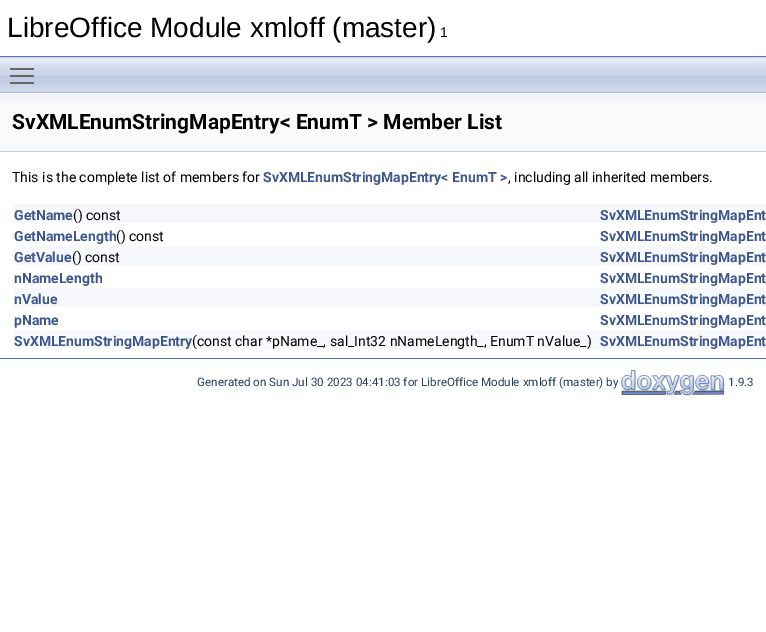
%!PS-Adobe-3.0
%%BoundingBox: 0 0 766 632
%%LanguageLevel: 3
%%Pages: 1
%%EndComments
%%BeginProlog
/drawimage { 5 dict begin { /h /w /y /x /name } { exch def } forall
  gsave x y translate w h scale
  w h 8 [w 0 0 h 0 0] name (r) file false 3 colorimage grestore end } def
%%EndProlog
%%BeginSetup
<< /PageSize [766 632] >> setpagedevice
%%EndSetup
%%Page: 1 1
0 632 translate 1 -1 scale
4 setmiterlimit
1 setgray
0 0 766 632 rectfill
0.325 0.451 0.706 setrgbcolor
0 56 766 1 rectfill
(images/1.raw) 0 57 766 36 drawimage
0.4 setgray
10 75 24 2 rectfill
10 68 24 2 rectfill
10 82 24 2 rectfill
0.976 0.98 0.988 setrgbcolor
0 101 766 50 rectfill
(images/2.raw) 0 93 766 8 drawimage
0.769 0.812 0.898 setrgbcolor
0 151 766 1 rectfill
0.969 0.973 0.984 setrgbcolor
14 204 752 19 rectfill
14 246 752 19 rectfill
14 288 752 19 rectfill
14 330 752 19 rectfill
0.29 0.416 0.667 setrgbcolor
0 358 766 1 rectfill
(images/3.raw) 621 370 104 26 drawimage
/LiberationSans-Regular [28 0 0 -28 0 0] selectfont
0 setgray
7 37 moveto (LibreOffice Module xmloff \(master\)) show
/LiberationSans-Regular [14 0 0 -14 0 0] selectfont
440 37 moveto (1) show
/Roboto-Bold [21 0 0 -21 0 0] selectfont
12 129 moveto (SvXMLEnumStringMapEntry< EnumT > Member List) show
/Roboto-Regular [14 0 0 -14 0 0] selectfont
12 182 moveto (This is the complete list of members for) show
/Roboto-Bold [14 0 0 -14 0 0] selectfont
0.239 0.341 0.549 setrgbcolor
263 182 moveto (SvXMLEnumStringMapEntry< EnumT >) show
/Roboto-Regular [14 0 0 -14 0 0] selectfont
0 setgray
508 182 moveto (, including all inherited members.) show
/Roboto-Bold [14 0 0 -14 0 0] selectfont
0.239 0.341 0.549 setrgbcolor
14 220 moveto (GetName) show
/Roboto-Regular [14 0 0 -14 0 0] selectfont
0 setgray
73 220 moveto (\(\) const) show
/Roboto-Bold [14 0 0 -14 0 0] selectfont
0.239 0.341 0.549 setrgbcolor
600 220 moveto (SvXMLEnumStringMapEnt) show
14 241 moveto (GetNameLength) show
/Roboto-Regular [14 0 0 -14 0 0] selectfont
0 setgray
116 241 moveto (\(\) const) show
/Roboto-Bold [14 0 0 -14 0 0] selectfont
0.239 0.341 0.549 setrgbcolor
600 241 moveto (SvXMLEnumStringMapEnt) show
14 262 moveto (GetValue) show
/Roboto-Regular [14 0 0 -14 0 0] selectfont
0 setgray
72 262 moveto (\(\) const) show
/Roboto-Bold [14 0 0 -14 0 0] selectfont
0.239 0.341 0.549 setrgbcolor
600 262 moveto (SvXMLEnumStringMapEnt) show
14 283 moveto (nNameLength) show
600 283 moveto (SvXMLEnumStringMapEnt) show
14 304 moveto (nValue) show
600 304 moveto (SvXMLEnumStringMapEnt) show
14 325 moveto (pName) show
600 325 moveto (SvXMLEnumStringMapEnt) show
14 346 moveto (SvXMLEnumStringMapEntry) show
/Roboto-Regular [14 0 0 -14 0 0] selectfont
0 setgray
192 346 moveto (\(const char *pName_, sal_Int32 nNameLength_, EnumT nValue_\)) show
/Roboto-Bold [14 0 0 -14 0 0] selectfont
0.239 0.341 0.549 setrgbcolor
600 346 moveto (SvXMLEnumStringMapEnt) show
/Roboto-Regular [11.65 0 0 -11.65 0 0] selectfont
0.165 0.239 0.38 setrgbcolor
197 386 moveto (Generated on Sun Jul 30 2023 04:41:03 for LibreOffice Module xmloff \(master\) by) show
728 386 moveto (1.9.3) show
showpage
%%EOF
